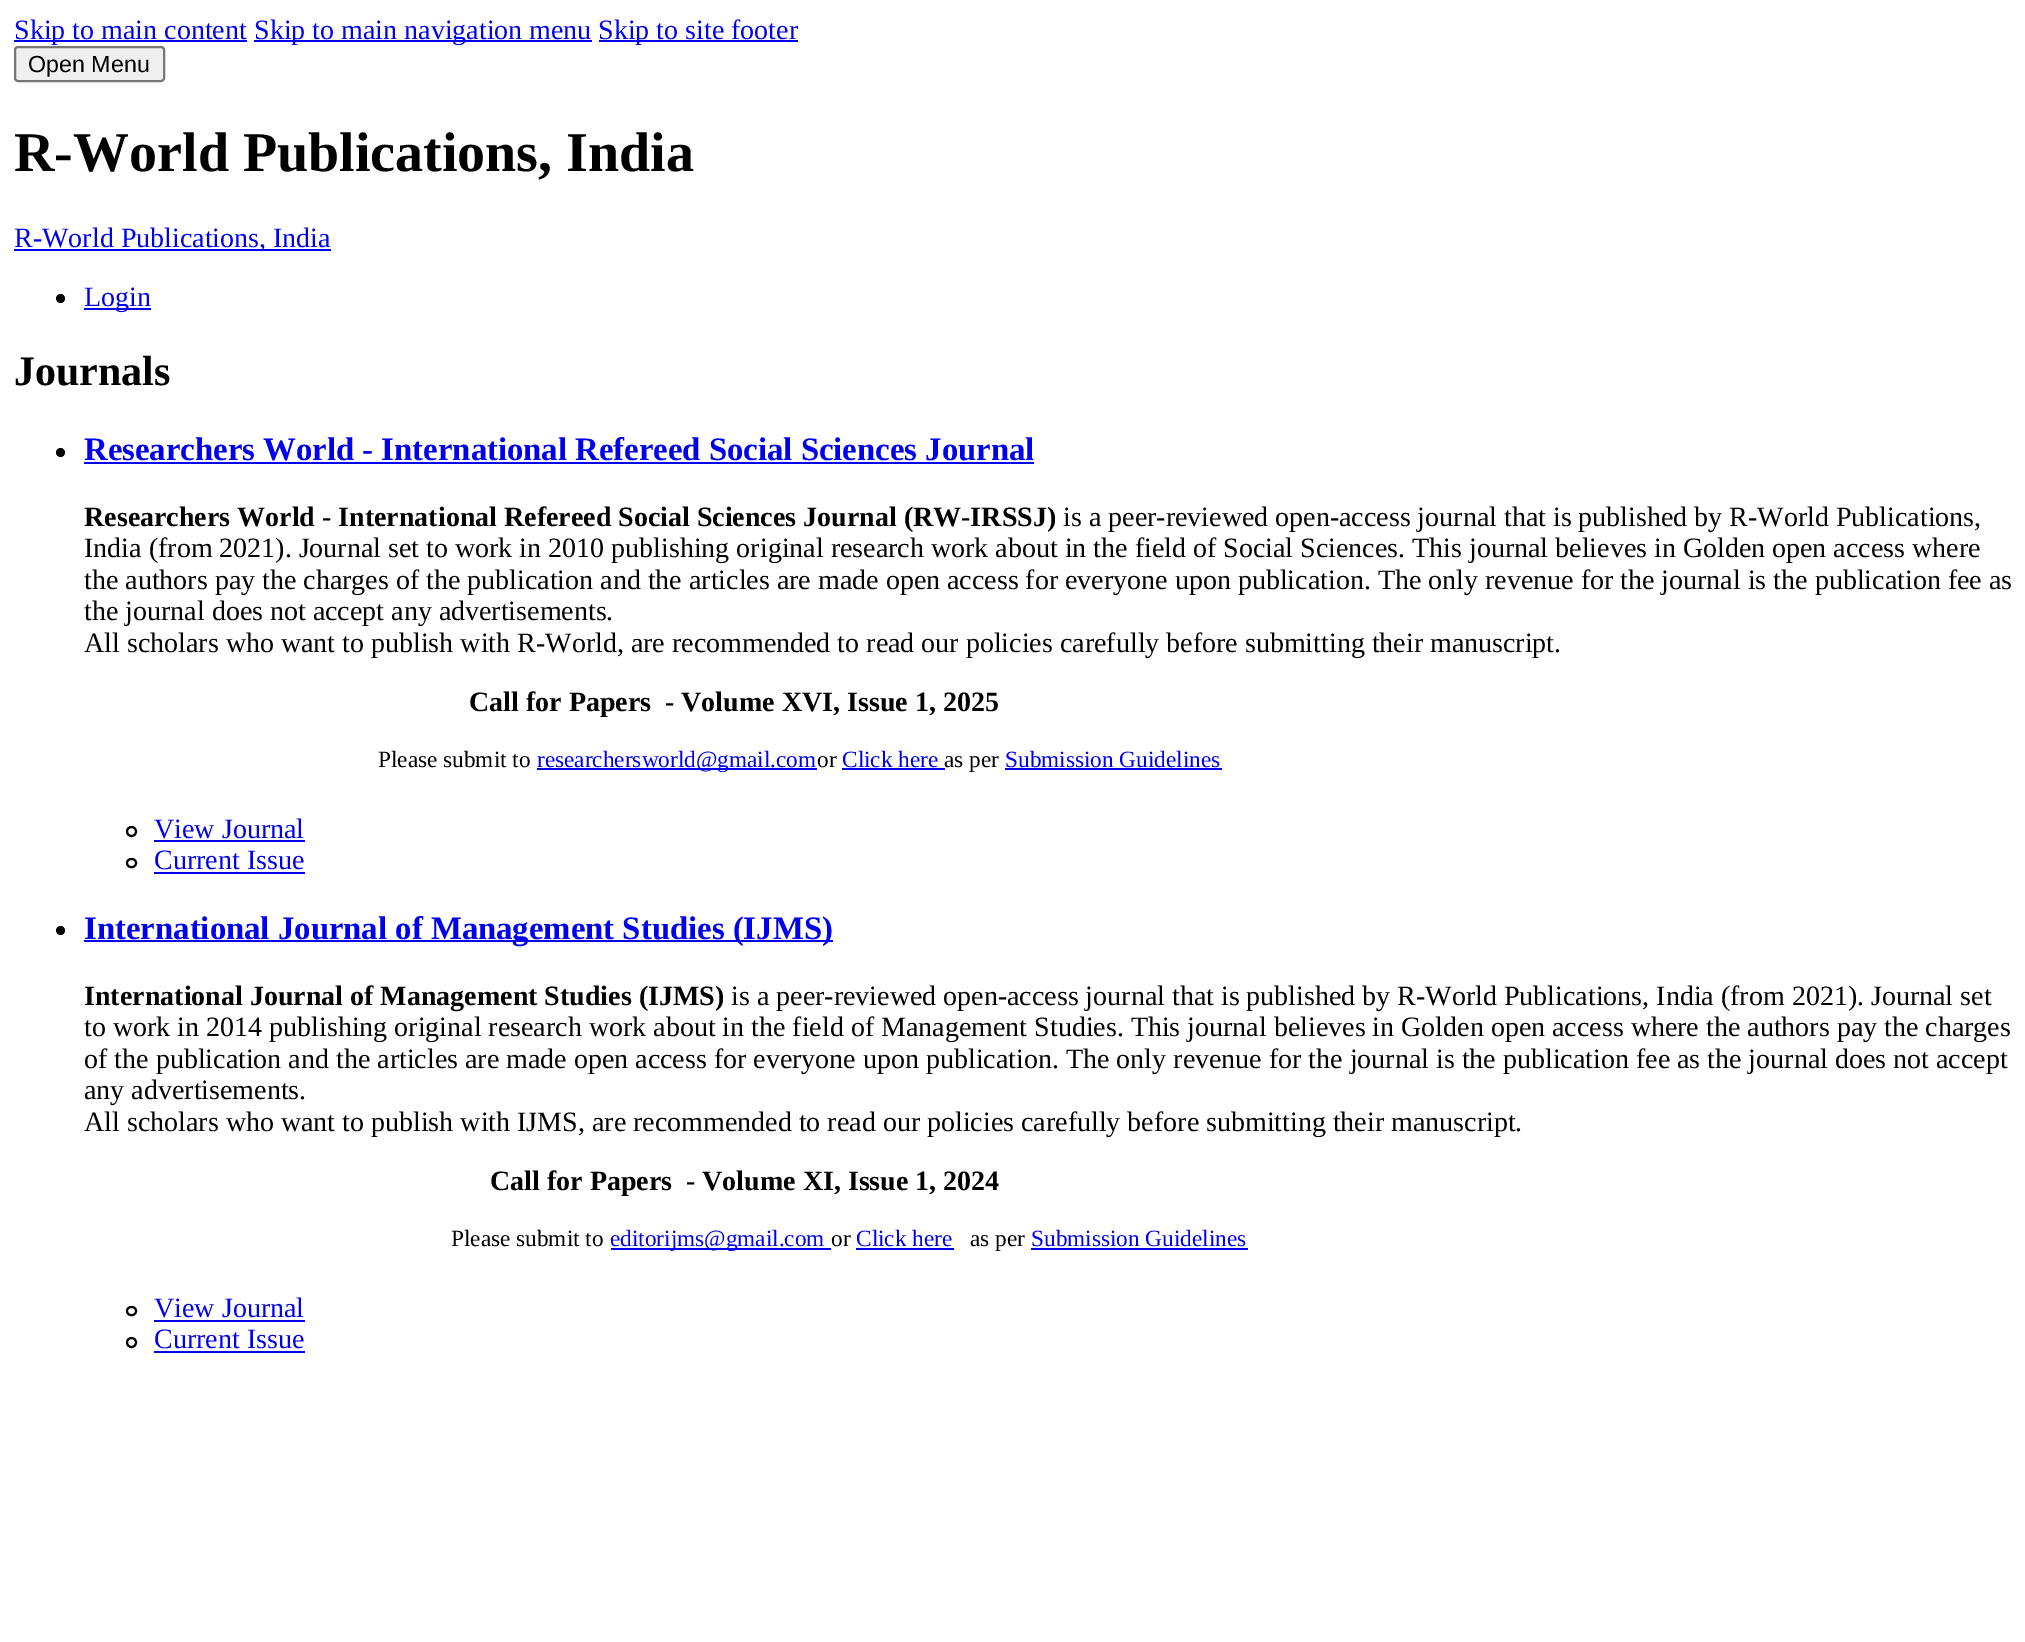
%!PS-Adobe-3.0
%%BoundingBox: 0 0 2025 1642
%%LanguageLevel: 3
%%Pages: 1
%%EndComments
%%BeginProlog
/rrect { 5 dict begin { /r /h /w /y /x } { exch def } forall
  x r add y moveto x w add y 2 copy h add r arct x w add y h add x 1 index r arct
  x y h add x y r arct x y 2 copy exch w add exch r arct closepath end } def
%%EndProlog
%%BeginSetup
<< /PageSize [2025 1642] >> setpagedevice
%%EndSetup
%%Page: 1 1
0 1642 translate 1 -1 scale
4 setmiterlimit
1 setgray
0 0 2025 1642 rectfill
0 0 0.933 setrgbcolor
14 40 233 2 rectfill
254 40 338 2 rectfill
599 40 199 2 rectfill
0.937 setgray
15 47 149 34 3 rrect gsave fill grestore
0.463 setgray
2 setlinewidth
stroke
0 0 0.933 setrgbcolor
14 249 317 2 rectfill
0 setgray
newpath 60.5 298.5 4.5 0 360 arc closepath fill
0 0 0.933 setrgbcolor
84 308 67 2 rectfill
0 setgray
newpath 60.5 452.5 4.5 0 360 arc closepath fill
0 0 0.933 setrgbcolor
84 462 950 2 rectfill
537 768 280 2 rectfill
842 768 103 2 rectfill
1005 768 217 2 rectfill
0 setgray
newpath 131.5 831.5 4.5 0 360 arc closepath stroke
0 0 0.933 setrgbcolor
154 840 151 2 rectfill
0 setgray
127 859 9 8 4 rrect stroke
0 0 0.933 setrgbcolor
154 872 151 2 rectfill
0 setgray
newpath 60.5 930.5 4.5 0 360 arc closepath fill
0 0 0.933 setrgbcolor
84 940 749 2 rectfill
611 1248 220 2 rectfill
856 1248 98 2 rectfill
1031 1248 217 2 rectfill
0 setgray
127 1307 9 8 4 rrect stroke
0 0 0.933 setrgbcolor
154 1320 151 2 rectfill
0 setgray
newpath 131.5 1342.5 4.5 0 360 arc closepath stroke
0 0 0.933 setrgbcolor
154 1351 151 2 rectfill
/LiberationSerif-Regular [28 0 0 -28 0 0] selectfont
14 39 moveto (Skip to main content) show
254 39 moveto (Skip to main navigation menu) show
598 39 moveto (Skip to site footer) show
/LiberationSans-Regular [23.25 0 0 -23.25 0 0] selectfont
0 setgray
28 72 moveto (Open Menu) show
/LiberationSerif-Bold [56 0 0 -56 0 0] selectfont
14 171 moveto (R-World Publications, India) show
/LiberationSerif-Regular [28 0 0 -28 0 0] selectfont
0 0 0.933 setrgbcolor
14 247 moveto (R-World Publications, India) show
84 306 moveto (Login) show
/LiberationSerif-Bold [42 0 0 -42 0 0] selectfont
0 setgray
14 385 moveto (Journals) show
/LiberationSerif-Bold [32.75 0 0 -32.75 0 0] selectfont
0 0 0.933 setrgbcolor
84 460 moveto (Researchers World - International Refereed Social Sciences Journal) show
/LiberationSerif-Bold [28 0 0 -28 0 0] selectfont
0 setgray
84 526 moveto (Researchers World - International Refereed Social Sciences Journal \(RW-IRSSJ\)) show
/LiberationSerif-Regular [28 0 0 -28 0 0] selectfont
1063 526 moveto (is a peer-reviewed open-access journal that is published by R-World Publications,) show
84 557 moveto (India \(from 2021\). Journal set to work in 2010 publishing original research work about in the field of Social Sciences. This journal believes in Golden open access where) show
84 589 moveto (the authors pay the charges of the publication and the articles are made open access for everyone upon publication. The only revenue for the journal is the publication fee as) show
84 620 moveto (the journal does not accept any advertisements.) show
84 652 moveto (All scholars who want to publish with R-World, are recommended to read our policies carefully before submitting their manuscript.) show
/LiberationSerif-Bold [28 0 0 -28 0 0] selectfont
469 711 moveto (Call for Papers  - Volume XVI, Issue 1, 2025) show
/LiberationSerif-Regular [23.25 0 0 -23.25 0 0] selectfont
378 767 moveto (Please submit to) show
0 0 0.933 setrgbcolor
537 767 moveto (researchersworld@gmail.com) show
0 setgray
817 767 moveto (or) show
0 0 0.933 setrgbcolor
842 767 moveto (Click here) show
0 setgray
944 767 moveto (as per) show
0 0 0.933 setrgbcolor
1005 767 moveto (Submission Guidelines) show
/LiberationSerif-Regular [28 0 0 -28 0 0] selectfont
154 838 moveto (View Journal) show
154 869 moveto (Current Issue) show
/LiberationSerif-Bold [32.75 0 0 -32.75 0 0] selectfont
84 939 moveto (International Journal of Management Studies \(IJMS\)) show
/LiberationSerif-Bold [28 0 0 -28 0 0] selectfont
0 setgray
84 1005 moveto (International Journal of Management Studies \(IJMS\)) show
/LiberationSerif-Regular [28 0 0 -28 0 0] selectfont
731 1005 moveto (is a peer-reviewed open-access journal that is published by R-World Publications, India \(from 2021\). Journal set) show
84 1036 moveto (to work in 2014 publishing original research work about in the field of Management Studies. This journal believes in Golden open access where the authors pay the charges) show
84 1068 moveto (of the publication and the articles are made open access for everyone upon publication. The only revenue for the journal is the publication fee as the journal does not accept) show
84 1099 moveto (any advertisements.) show
84 1131 moveto (All scholars who want to publish with IJMS, are recommended to read our policies carefully before submitting their manuscript.) show
/LiberationSerif-Bold [28 0 0 -28 0 0] selectfont
490 1190 moveto (Call for Papers  - Volume XI, Issue 1, 2024) show
/LiberationSerif-Regular [23.25 0 0 -23.25 0 0] selectfont
451 1246 moveto (Please submit to) show
0 0 0.933 setrgbcolor
610 1246 moveto (editorijms@gmail.com) show
0 setgray
831 1246 moveto (or) show
0 0 0.933 setrgbcolor
856 1246 moveto (Click here) show
0 setgray
970 1246 moveto (as per) show
0 0 0.933 setrgbcolor
1031 1246 moveto (Submission Guidelines) show
/LiberationSerif-Regular [28 0 0 -28 0 0] selectfont
154 1317 moveto (View Journal) show
154 1348 moveto (Current Issue) show
showpage
%%EOF
